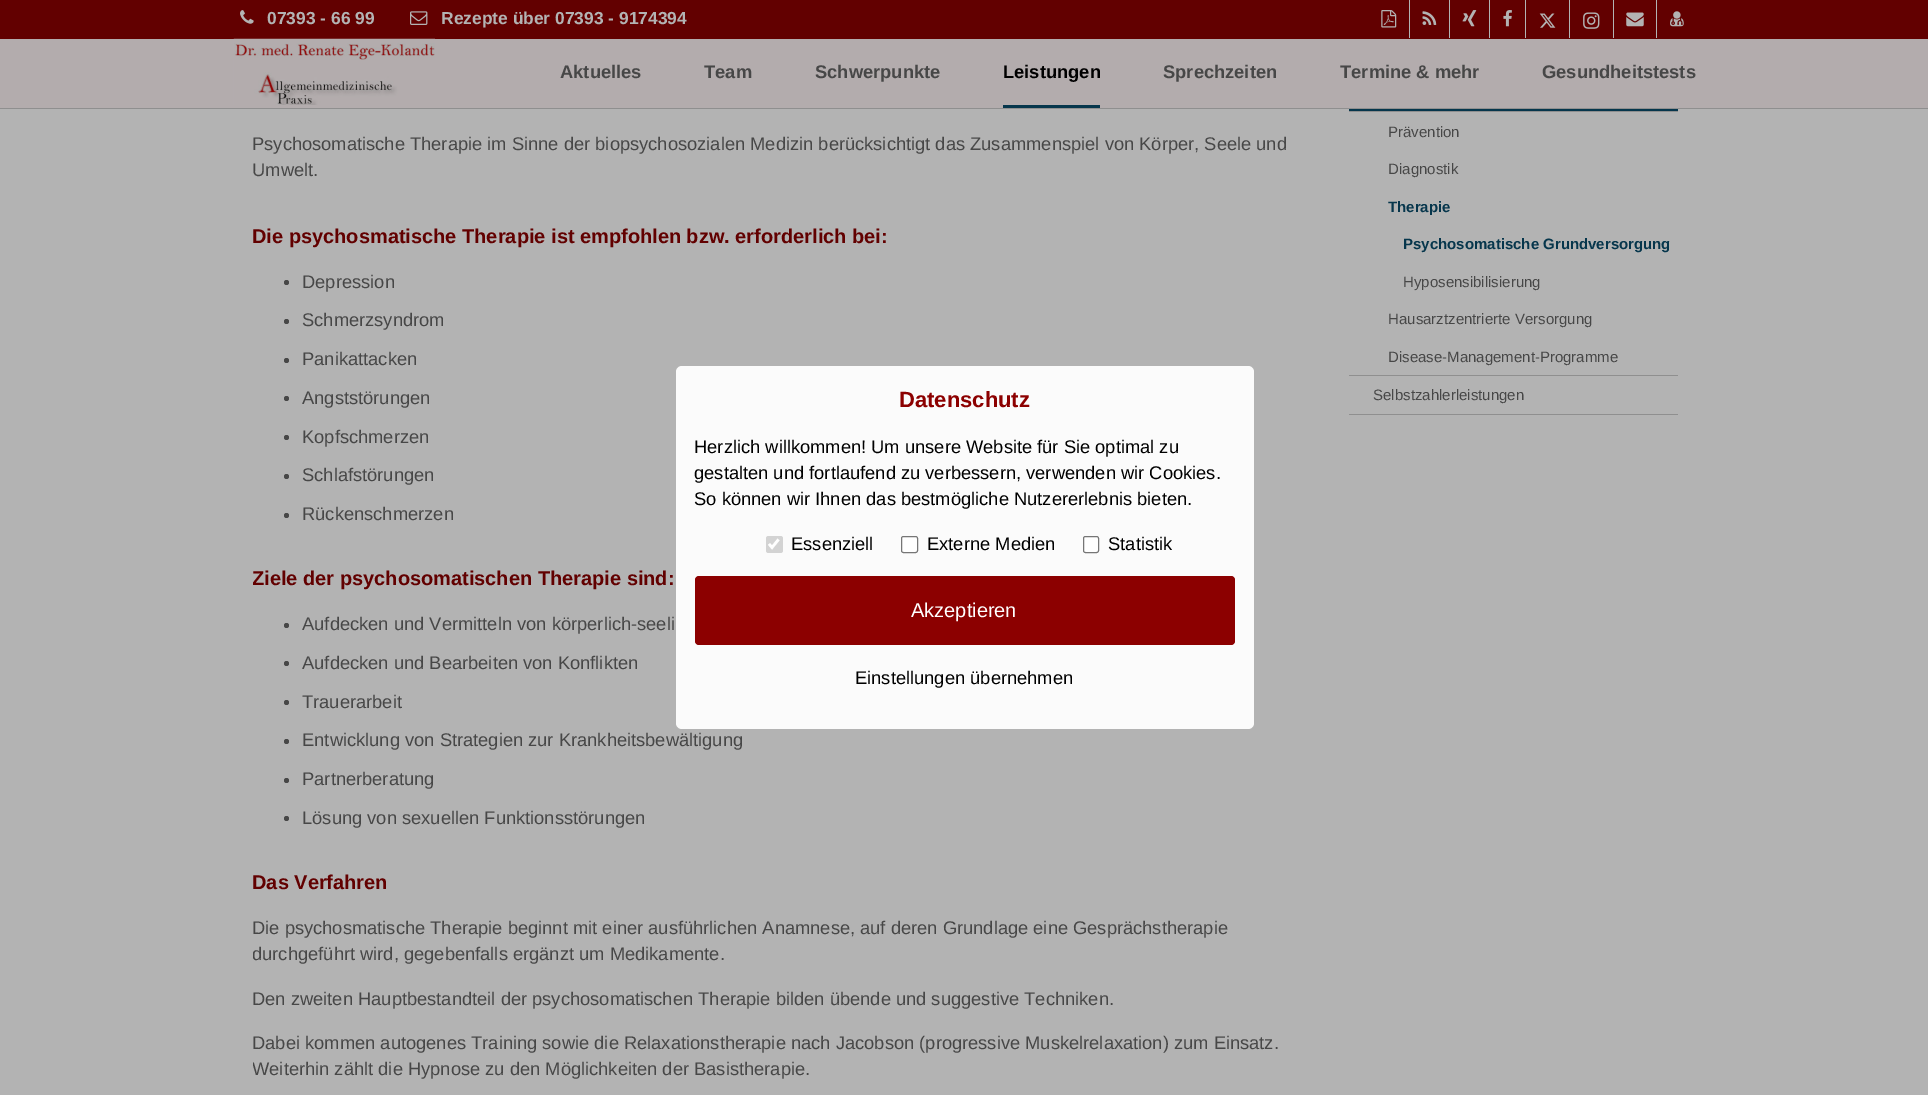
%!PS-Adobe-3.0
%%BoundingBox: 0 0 1928 1095
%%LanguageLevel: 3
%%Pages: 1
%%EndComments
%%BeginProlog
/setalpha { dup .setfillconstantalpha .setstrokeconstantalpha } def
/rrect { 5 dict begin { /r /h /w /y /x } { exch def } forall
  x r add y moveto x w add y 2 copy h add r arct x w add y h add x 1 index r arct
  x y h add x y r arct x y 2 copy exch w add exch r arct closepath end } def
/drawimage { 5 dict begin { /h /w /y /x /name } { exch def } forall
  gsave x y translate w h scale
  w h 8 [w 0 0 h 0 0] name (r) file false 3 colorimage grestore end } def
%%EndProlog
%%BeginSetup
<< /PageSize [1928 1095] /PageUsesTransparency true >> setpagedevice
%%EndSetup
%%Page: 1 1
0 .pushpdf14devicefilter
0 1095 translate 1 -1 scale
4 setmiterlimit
0.702 setgray
0 0 1928 1095 rectfill
0.702 0.675 0.678 setrgbcolor
0 39 1928 69 rectfill
0.561 setgray
0 108 1928 1 rectfill
0.384 0 0 setrgbcolor
0 0 1928 39 rectfill
(images/1.raw) 240 10 14 14 drawimage
(images/2.raw) 410 11 18 14 drawimage
0.702 setgray
1409 0 1 38 rectfill
(images/3.raw) 1381 10 16 18 drawimage
1449 0 1 38 rectfill
(images/4.raw) 1422 11 15 14 drawimage
1489 0 1 38 rectfill
(images/5.raw) 1462 10 15 17 drawimage
1525 0 1 38 rectfill
(images/6.raw) 1503 10 9 17 drawimage
1569 0 1 38 rectfill
(images/7.raw) 1539 13 17 15 drawimage
1613 0 1 38 rectfill
(images/8.raw) 1583 12 17 17 drawimage
1656 0 1 38 rectfill
(images/9.raw) 1626 12 18 15 drawimage
(images/10.raw) 1670 11 14 16 drawimage
(images/11.raw) 233 38 202 67 drawimage
0.024 0.212 0.298 setrgbcolor
1003 105 97 3 rectfill
0.278 setgray
newpath 286.5 282.5 2.5 0 360 arc closepath fill
newpath 286.5 321.5 2.5 0 360 arc closepath fill
newpath 286.5 360.5 2.5 0 360 arc closepath fill
newpath 286.5 398.5 2.5 0 360 arc closepath fill
newpath 286.5 437.5 2.5 0 360 arc closepath fill
newpath 286.5 476.5 2.5 0 360 arc closepath fill
newpath 286.5 515.5 2.5 0 360 arc closepath fill
newpath 286.5 625.5 2.5 0 360 arc closepath fill
newpath 286.5 663.5 2.5 0 360 arc closepath fill
newpath 286.5 702.5 2.5 0 360 arc closepath fill
newpath 286.5 741.5 2.5 0 360 arc closepath fill
newpath 286.5 780.5 2.5 0 360 arc closepath fill
newpath 286.5 818.5 2.5 0 360 arc closepath fill
0.024 0.212 0.298 setrgbcolor
1349 109 329 2 rectfill
0.561 setgray
1349 375 329 1 rectfill
1349 111 329 1 rectfill
1349 414 329 1 rectfill
0.95 setalpha
1 setgray
676 366 578 363 6 rrect fill
1 setalpha
0.827 setgray
766 536 17 17 2.5 rrect fill
1 setgray
2.6 setlinewidth
newpath 769 544 moveto 772 547.5 lineto 778.5 539.5 lineto stroke
901.5 536.5 16 16 2 rrect gsave fill grestore
0.463 setgray
1 setlinewidth
stroke
1 setgray
1083.5 536.5 15 16 2 rrect gsave fill grestore
0.463 setgray
stroke
0.549 0 0 setrgbcolor
695 576 540 69 4 rrect fill
/LiberationSans-Bold [17.4 0 0 -17.4 0 0] selectfont
0.702 setgray
267 24 moveto (07393 - 66 99) show
441 24 moveto (Rezepte über 07393 - 9174394) show
/LiberationSans-Bold [18.33 0 0 -18.33 0 0] selectfont
0.278 setgray
560 78 moveto (Aktuelles) show
704 78 moveto (Team) show
815 78 moveto (Schwerpunkte) show
0 setgray
1003 78 moveto (Leistungen) show
0.278 setgray
1163 78 moveto (Sprechzeiten) show
1340 78 moveto (Termine & mehr) show
1542 78 moveto (Gesundheitstests) show
/LiberationSans-Regular [18.33 0 0 -18.33 0 0] selectfont
252 150 moveto (Psychosomatische Therapie im Sinne der biopsychosozialen Medizin berücksichtigt das Zusammenspiel von Körper, Seele und) show
252 176 moveto (Umwelt.) show
/LiberationSans-Bold [20 0 0 -20 0 0] selectfont
0.384 0 0 setrgbcolor
252 243 moveto (Die psychosmatische Therapie ist empfohlen bzw. erforderlich bei:) show
/LiberationSans-Regular [18.33 0 0 -18.33 0 0] selectfont
0.278 setgray
302 288 moveto (Depression) show
302 326 moveto (Schmerzsyndrom) show
302 365 moveto (Panikattacken) show
302 404 moveto (Angststörungen) show
302 443 moveto (Kopfschmerzen) show
302 481 moveto (Schlafstörungen) show
302 520 moveto (Rückenschmerzen) show
gsave
253 131 1058 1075 rectclip
/LiberationSans-Bold [20 0 0 -20 0 0] selectfont
0.384 0 0 setrgbcolor
252 585 moveto (Ziele der psychosomatischen Therapie sind:) show
grestore
302 630 moveto (Aufdecken und Vermitteln von körperlich-seeli) show
302 669 moveto (Aufdecken und Bearbeiten von Konflikten) show
302 708 moveto (Trauerarbeit) show
302 746 moveto (Entwicklung von Strategien zur Krankheitsbewältigung) show
302 785 moveto (Partnerberatung) show
302 824 moveto (Lösung von sexuellen Funktionsstörungen) show
/LiberationSans-Bold [20 0 0 -20 0 0] selectfont
0.384 0 0 setrgbcolor
252 889 moveto (Das Verfahren) show
/LiberationSans-Regular [18.33 0 0 -18.33 0 0] selectfont
0.278 setgray
252 934 moveto (Die psychosmatische Therapie beginnt mit einer ausführlichen Anamnese, auf deren Grundlage eine Gesprächstherapie) show
gsave
253 131 1058 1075 rectclip
252 960 moveto (durchgeführt wird, gegebenfalls ergänzt um Medikamente.) show
grestore
252 1005 moveto (Den zweiten Hauptbestandteil der psychosomatischen Therapie bilden übende und suggestive Techniken.) show
252 1049 moveto (Dabei kommen autogenes Training sowie die Relaxationstherapie nach Jacobson \(progressive Muskelrelaxation\) zum Einsatz.) show
gsave
253 131 1058 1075 rectclip
252 1075 moveto (Weiterhin zählt die Hypnose zu den Möglichkeiten der Basistherapie.) show
grestore
/LiberationSans-Regular [15 0 0 -15 0 0] selectfont
1388 137 moveto (Prävention) show
1388 174 moveto (Diagnostik) show
/LiberationSans-Bold [15 0 0 -15 0 0] selectfont
0.024 0.212 0.298 setrgbcolor
1388 212 moveto (Therapie) show
1403 249 moveto (Psychosomatische Grundversorgung) show
/LiberationSans-Regular [15 0 0 -15 0 0] selectfont
0.278 setgray
1403 287 moveto (Hyposensibilisierung) show
1388 324 moveto (Hausarztzentrierte Versorgung) show
1388 362 moveto (Disease-Management-Programme) show
1373 400 moveto (Selbstzahlerleistungen) show
/LiberationSans-Bold [22 0 0 -22 0 0] selectfont
0.549 0 0 setrgbcolor
899 407 moveto (Datenschutz) show
/LiberationSans-Regular [18.33 0 0 -18.33 0 0] selectfont
0 setgray
694 453 moveto (Herzlich willkommen! Um unsere Website für Sie optimal zu) show
694 479 moveto (gestalten und fortlaufend zu verbessern, verwenden wir Cookies.) show
694 505 moveto (So können wir Ihnen das bestmögliche Nutzererlebnis bieten.) show
791 550 moveto (Essenziell) show
927 550 moveto (Externe Medien) show
1108 550 moveto (Statistik) show
/LiberationSans-Regular [20 0 0 -20 0 0] selectfont
1 setgray
911 617 moveto (Akzeptieren) show
/LiberationSans-Regular [18.33 0 0 -18.33 0 0] selectfont
0 setgray
855 684 moveto (Einstellungen übernehmen) show
.poppdf14devicefilter showpage
%%EOF
